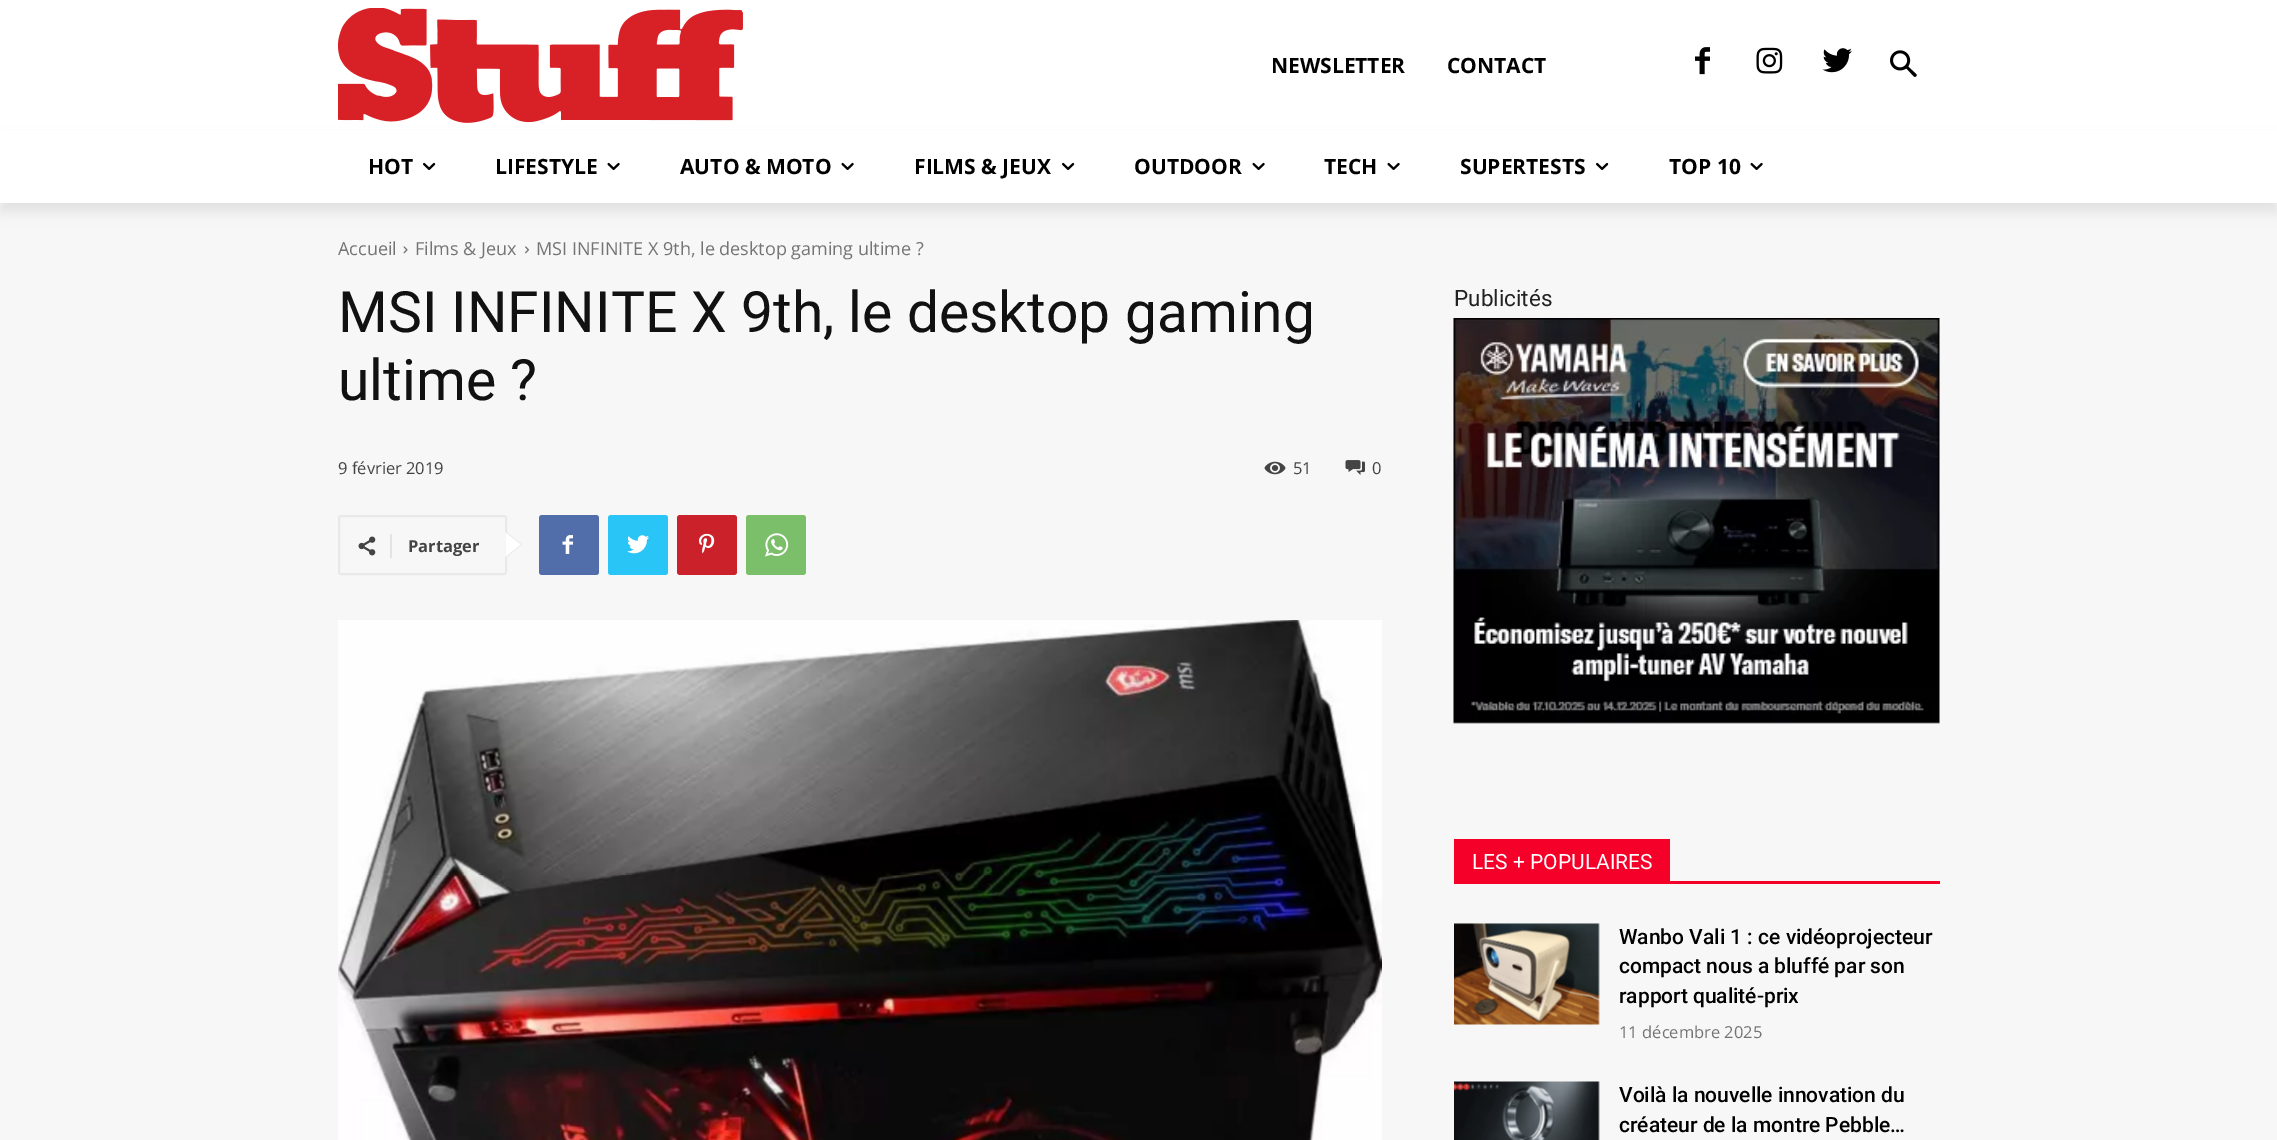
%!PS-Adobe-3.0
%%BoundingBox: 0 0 2277 1140
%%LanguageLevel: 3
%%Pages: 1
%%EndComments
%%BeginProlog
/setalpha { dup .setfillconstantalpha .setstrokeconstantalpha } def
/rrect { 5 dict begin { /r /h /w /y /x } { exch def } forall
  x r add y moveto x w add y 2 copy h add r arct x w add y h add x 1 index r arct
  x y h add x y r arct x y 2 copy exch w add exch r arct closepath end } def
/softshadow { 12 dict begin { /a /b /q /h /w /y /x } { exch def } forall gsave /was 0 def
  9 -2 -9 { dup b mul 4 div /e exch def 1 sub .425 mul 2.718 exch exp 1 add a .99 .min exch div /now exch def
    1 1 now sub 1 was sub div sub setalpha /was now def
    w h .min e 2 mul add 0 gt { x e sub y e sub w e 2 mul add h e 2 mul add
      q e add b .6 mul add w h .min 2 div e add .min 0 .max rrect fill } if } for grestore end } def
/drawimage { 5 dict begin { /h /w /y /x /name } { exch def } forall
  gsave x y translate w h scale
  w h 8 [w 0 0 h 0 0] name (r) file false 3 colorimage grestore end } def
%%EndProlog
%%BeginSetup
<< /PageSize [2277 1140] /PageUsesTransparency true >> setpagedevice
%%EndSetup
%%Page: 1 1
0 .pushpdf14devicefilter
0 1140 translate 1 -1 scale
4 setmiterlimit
1 setgray
0 0 2277 1140 rectfill
(images/1.raw) 338 8 405 115 drawimage
(images/2.raw) 1695 47 15 28 drawimage
(images/3.raw) 1756 47 27 27 drawimage
(images/4.raw) 1822 48 30 25 drawimage
(images/5.raw) 1890 50 27 27 drawimage
0.969 setgray
0 203 2277 937 rectfill
gsave
newpath 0 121 moveto 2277 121 lineto 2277 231 lineto 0 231 lineto closepath 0 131 moveto 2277 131 lineto 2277 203 lineto 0 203 lineto closepath eoclip newpath
0 setgray
0 140 2277 72 0 6 0.08 softshadow
grestore
(images/6.raw) 423 162 13 8 drawimage
(images/7.raw) 607 162 13 8 drawimage
(images/7.raw) 841 162 13 8 drawimage
(images/6.raw) 1062 162 13 8 drawimage
(images/7.raw) 1252 162 13 8 drawimage
(images/7.raw) 1387 162 13 8 drawimage
(images/6.raw) 1596 162 13 8 drawimage
(images/7.raw) 1750 162 13 8 drawimage
(images/8.raw) 403 246 5 8 drawimage
(images/9.raw) 525 246 4 8 drawimage
(images/10.raw) 1264 461 22 14 drawimage
(images/11.raw) 1345 460 20 15 drawimage
0.914 setgray
2 setlinewidth
339 516 167 58 2 rrect stroke
newpath 505.5 558 moveto 505.5 531 lineto 522 544.5 lineto closepath fill
(images/12.raw) 358 536 18 20 drawimage
0.89 setgray
390 534 2 24 rectfill
1 setgray
newpath 505.5 556.5 moveto 505.5 532.5 lineto 520.5 544.5 lineto closepath fill
0.318 0.431 0.671 setrgbcolor
539 515 60 60 3 rrect fill
(images/13.raw) 562 535 11 19 drawimage
0.161 0.773 0.965 setrgbcolor
608 515 60 60 3 rrect fill
(images/14.raw) 627 535 22 19 drawimage
0.792 0.129 0.165 setrgbcolor
677 515 60 60 3 rrect fill
(images/15.raw) 699 533 16 21 drawimage
0.482 0.749 0.416 setrgbcolor
746 515 60 60 3 rrect fill
(images/16.raw) 765 533 24 24 drawimage
(images/17.raw) 338 620 1044 520 drawimage
(images/18.raw) 1453 318 487 406 drawimage
0.957 0 0.157 setrgbcolor
1454 881 486 3 rectfill
1454 839 216 42 rectfill
(images/19.raw) 1454 923 146 102 drawimage
(images/20.raw) 1454 1081 146 59 drawimage
/OpenSans-Bold [21 0 0 -21 0 0] selectfont
0 setgray
1271 73 moveto (NEWSLETTER) show
1447 73 moveto (CONTACT) show
368 174 moveto (HOT) show
495 174 moveto (LIFESTYLE) show
680 174 moveto (AUTO & MOTO) show
914 174 moveto (FILMS & JEUX) show
1134 174 moveto (OUTDOOR) show
1324 174 moveto (TECH) show
1460 174 moveto (SUPERTESTS) show
1669 174 moveto (TOP 10) show
/OpenSans-Regular [18 0 0 -18 0 0] selectfont
0.455 setgray
338 255 moveto (Accueil) show
415 255 moveto (Films & Jeux) show
536 255 moveto (MSI INFINITE X 9th, le desktop gaming ultime ?) show
/Roboto-Regular [57 0 0 -57 0 0] selectfont
0.067 setgray
338 332 moveto (MSI INFINITE X 9th, le desktop gaming) show
338 400 moveto (ultime ?) show
/OpenSans-Regular [16.5 0 0 -16.5 0 0] selectfont
0.267 setgray
338 474 moveto (9 février 2019) show
1293 474 moveto (51) show
1372 474 moveto (0) show
/OpenSans-Bold [16.5 0 0 -16.5 0 0] selectfont
408 552 moveto (Partager) show
/Roboto-Regular [22.5 0 0 -22.5 0 0] selectfont
0.133 setgray
1454 306 moveto (Publicités) show
/Roboto-Regular [21 0 0 -21 0 0] selectfont
1 setgray
1472 869 moveto (LES + POPULAIRES) show
/Roboto-Medium [21 0 0 -21 0 0] selectfont
0 setgray
1619 944 moveto (Wanbo Vali 1 : ce vidéoprojecteur) show
1619 973 moveto (compact nous a bluffé par son) show
1619 1003 moveto (rapport qualité-prix) show
/OpenSans-Regular [16.5 0 0 -16.5 0 0] selectfont
0.455 setgray
1619 1038 moveto (11 décembre 2025) show
/Roboto-Medium [21 0 0 -21 0 0] selectfont
0 setgray
1619 1102 moveto (Voilà la nouvelle innovation du) show
1619 1132 moveto (créateur de la montre Pebble…) show
.poppdf14devicefilter showpage
%%EOF
